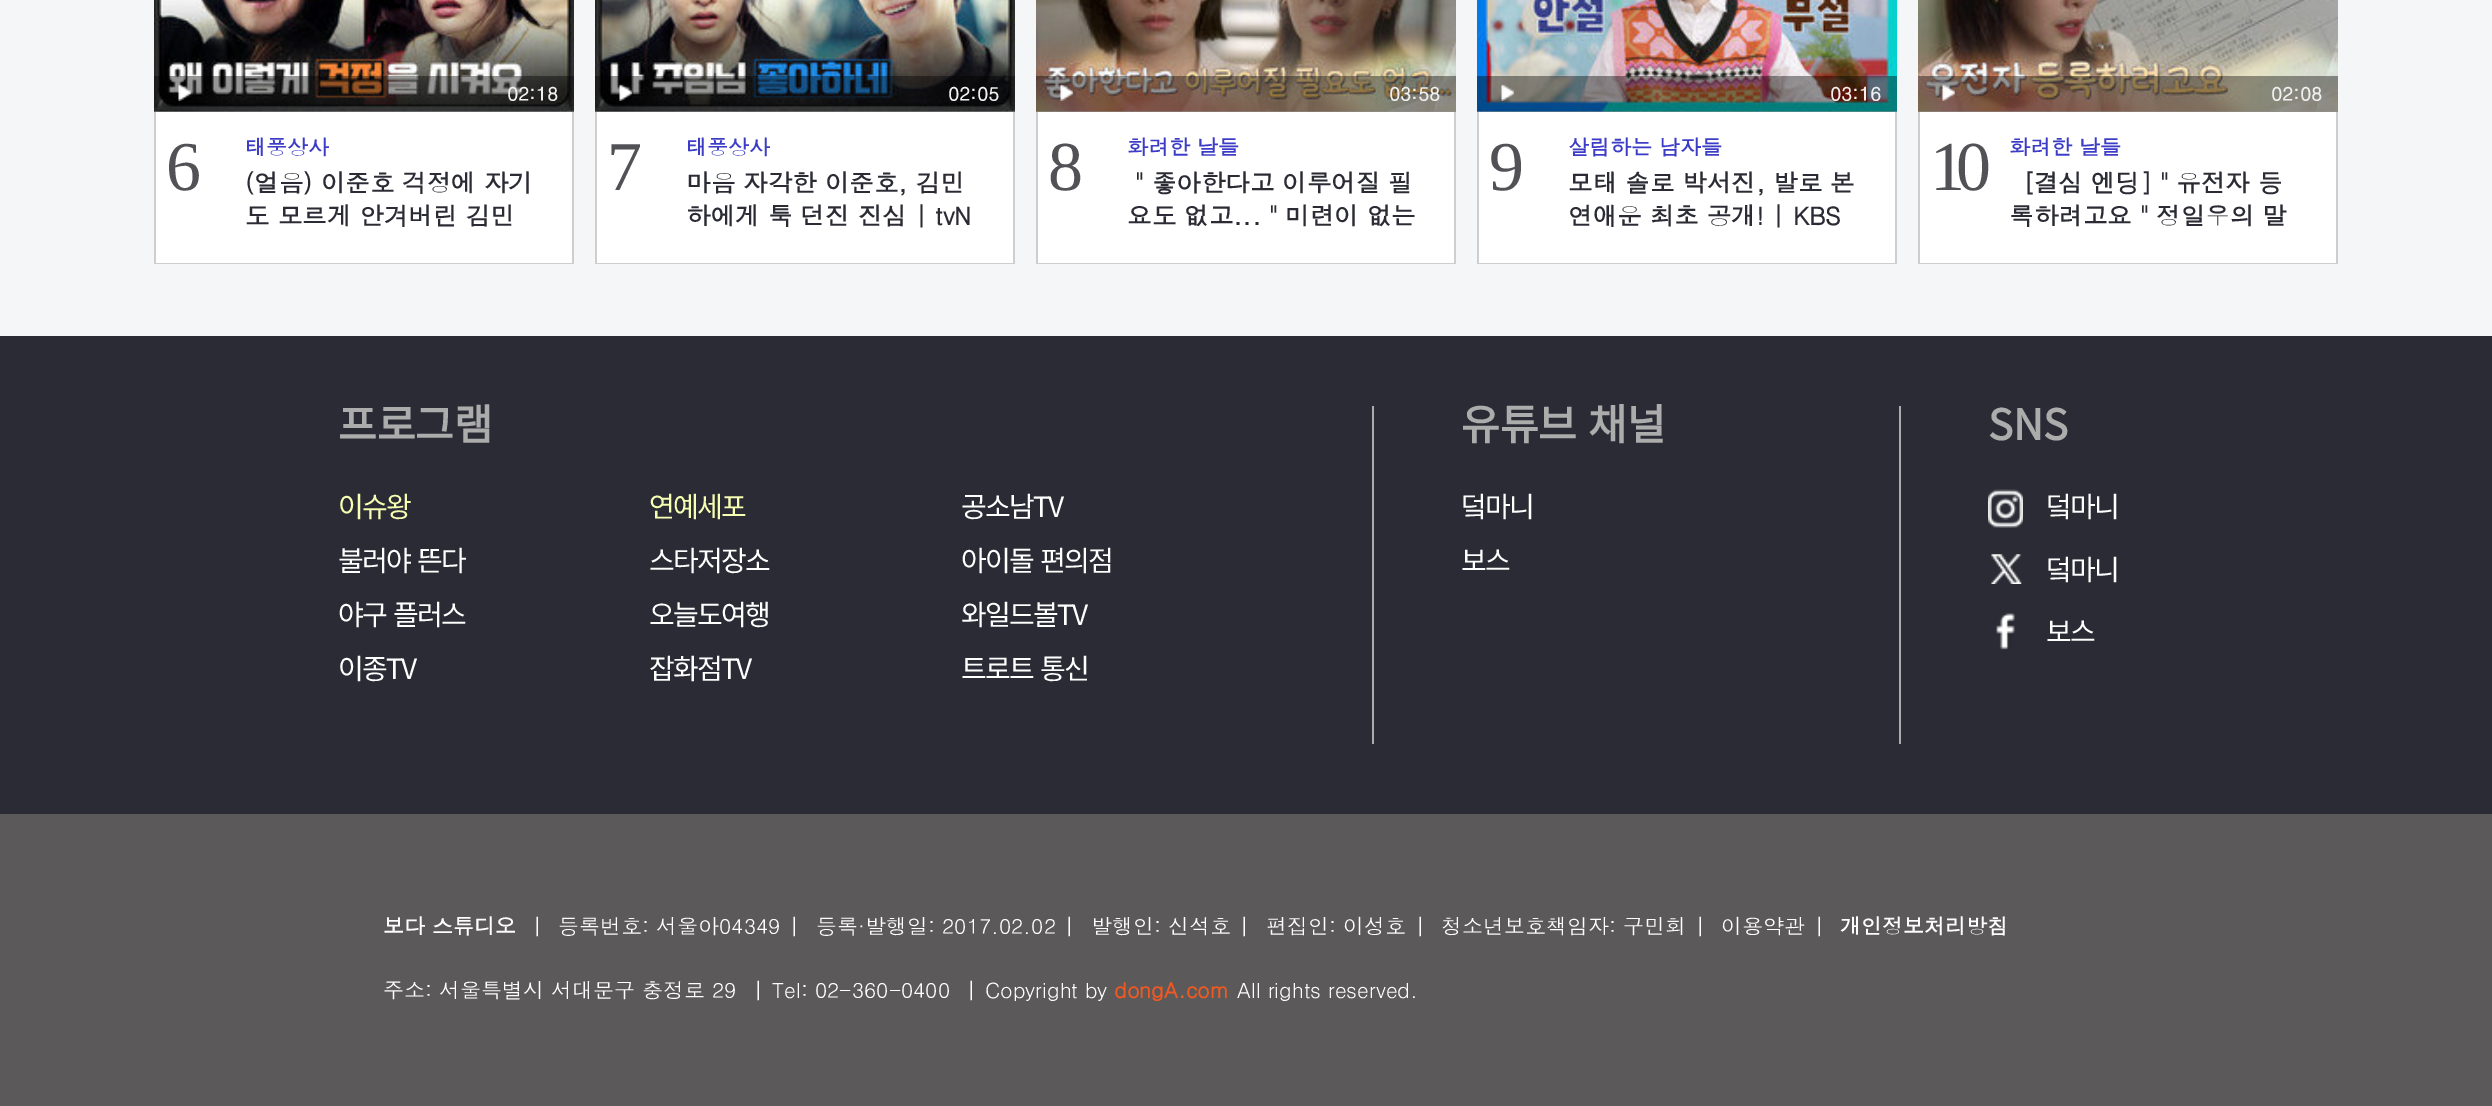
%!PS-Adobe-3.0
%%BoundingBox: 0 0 2492 1106
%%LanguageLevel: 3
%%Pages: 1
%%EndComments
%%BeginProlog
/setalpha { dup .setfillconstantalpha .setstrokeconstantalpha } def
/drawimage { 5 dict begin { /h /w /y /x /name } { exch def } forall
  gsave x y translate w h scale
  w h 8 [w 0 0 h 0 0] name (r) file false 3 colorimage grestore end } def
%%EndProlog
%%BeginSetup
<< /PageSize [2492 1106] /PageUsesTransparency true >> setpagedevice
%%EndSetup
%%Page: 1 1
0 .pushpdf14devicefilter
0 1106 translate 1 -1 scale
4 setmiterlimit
0.169 0.169 0.208 setrgbcolor
0 0 2492 1106 rectfill
0.961 0.965 0.969 setrgbcolor
0 0 2492 336 rectfill
(images/1.raw) 154 0 420 112 drawimage
0.4 setalpha
0 setgray
154 76 420 36 rectfill
1 setalpha
(images/2.raw) 178 84 13 17 drawimage
1 setgray
156 112 416 151 rectfill
0.808 setgray
572 112 2 152 rectfill
154 263 420 1 rectfill
154 112 2 152 rectfill
(images/3.raw) 595 0 420 112 drawimage
0.4 setalpha
0 setgray
595 76 420 36 rectfill
1 setalpha
(images/4.raw) 619 84 13 17 drawimage
1 setgray
597 112 416 151 rectfill
0.808 setgray
1013 112 2 152 rectfill
595 263 420 1 rectfill
595 112 2 152 rectfill
(images/5.raw) 1036 0 420 112 drawimage
0.4 setalpha
0 setgray
1036 76 420 36 rectfill
1 setalpha
(images/6.raw) 1060 84 13 17 drawimage
1 setgray
1038 112 416 151 rectfill
0.808 setgray
1454 112 2 152 rectfill
1036 263 420 1 rectfill
1036 112 2 152 rectfill
(images/7.raw) 1477 0 420 112 drawimage
0.4 setalpha
0 setgray
1477 76 420 36 rectfill
1 setalpha
(images/8.raw) 1501 84 13 17 drawimage
1 setgray
1479 112 416 151 rectfill
0.808 setgray
1895 112 2 152 rectfill
1477 263 420 1 rectfill
1477 112 2 152 rectfill
(images/9.raw) 1918 0 420 112 drawimage
0.4 setalpha
0 setgray
1918 76 420 36 rectfill
1 setalpha
(images/10.raw) 1942 84 13 17 drawimage
1 setgray
1920 112 416 151 rectfill
0.808 setgray
2336 112 2 152 rectfill
1918 263 420 1 rectfill
1918 112 2 152 rectfill
0.675 setgray
1372 406 2 338 rectfill
1899 406 2 338 rectfill
(images/11.raw) 1988 489 35 39 drawimage
(images/12.raw) 1991 554 31 30 drawimage
(images/13.raw) 1996 613 19 37 drawimage
0.357 0.349 0.349 setrgbcolor
0 814 2492 292 rectfill
/Dotum-Bold [19 0 0 -19 0 0] selectfont
0.941 setgray
507 101 moveto (02:18) show
/LiberationSerif-Regular [70 0 0 -70 0 0] selectfont
0.318 0.318 0.337 setrgbcolor
166 190 moveto -9 0 (6) ashow
/Dotum-Bold [21 0 0 -21 0 0] selectfont
0.235 0.235 0.78 setrgbcolor
245 155 moveto (태풍상사) show
/Dotum-Bold [24.5 0 0 -24.5 0 0] selectfont
0.169 0.169 0.208 setrgbcolor
245 192 moveto (\(얼음\) 이준호 걱정에 자기) show
245 225 moveto (도 모르게 안겨버린 김민) show
/Dotum-Bold [19 0 0 -19 0 0] selectfont
0.941 setgray
948 101 moveto (02:05) show
/LiberationSerif-Regular [70 0 0 -70 0 0] selectfont
0.318 0.318 0.337 setrgbcolor
607 190 moveto -9 0 (7) ashow
/Dotum-Bold [21 0 0 -21 0 0] selectfont
0.235 0.235 0.78 setrgbcolor
686 155 moveto (태풍상사) show
/Dotum-Bold [24.5 0 0 -24.5 0 0] selectfont
0.169 0.169 0.208 setrgbcolor
686 192 moveto (마음 자각한 이준호, 김민) show
686 225 moveto (하에게 툭 던진 진심 | tvN) show
/Dotum-Bold [19 0 0 -19 0 0] selectfont
0.941 setgray
1389 101 moveto (03:58) show
/LiberationSerif-Regular [70 0 0 -70 0 0] selectfont
0.318 0.318 0.337 setrgbcolor
1048 190 moveto -9 0 (8) ashow
/Dotum-Bold [21 0 0 -21 0 0] selectfont
0.235 0.235 0.78 setrgbcolor
1127 155 moveto (화려한 날들) show
/Dotum-Bold [24.5 0 0 -24.5 0 0] selectfont
0.169 0.169 0.208 setrgbcolor
1127 192 moveto (＂좋아한다고 이루어질 필) show
1127 225 moveto (요도 없고...＂미련이 없는) show
/Dotum-Bold [19 0 0 -19 0 0] selectfont
0.941 setgray
1830 101 moveto (03:16) show
/LiberationSerif-Regular [70 0 0 -70 0 0] selectfont
0.318 0.318 0.337 setrgbcolor
1489 190 moveto -9 0 (9) ashow
/Dotum-Bold [21 0 0 -21 0 0] selectfont
0.235 0.235 0.78 setrgbcolor
1568 155 moveto (살림하는 남자들) show
/Dotum-Bold [24.5 0 0 -24.5 0 0] selectfont
0.169 0.169 0.208 setrgbcolor
1568 192 moveto (모태 솔로 박서진, 발로 본) show
1568 225 moveto (연애운 최초 공개! | KBS) show
/Dotum-Bold [19 0 0 -19 0 0] selectfont
0.941 setgray
2271 101 moveto (02:08) show
/LiberationSerif-Regular [70 0 0 -70 0 0] selectfont
0.318 0.318 0.337 setrgbcolor
1930 190 moveto -9 0 (10) ashow
/Dotum-Bold [21 0 0 -21 0 0] selectfont
0.235 0.235 0.78 setrgbcolor
2009 155 moveto (화려한 날들) show
/Dotum-Bold [24.5 0 0 -24.5 0 0] selectfont
0.169 0.169 0.208 setrgbcolor
2009 192 moveto (［결심 엔딩]＂유전자 등) show
2009 225 moveto (록하려고요＂정일우의 말) show
/NotoSansKR-Bold [42 0 0 -42 0 0] selectfont
0.675 setgray
338 440 moveto (프로그램) show
/NotoSansKR-Thin [28 0 0 -28 0 0] selectfont
0.969 1 0.698 setrgbcolor
338 517 moveto -1.75 0 (이슈왕) ashow
649 517 moveto -1.75 0 (연예세포) ashow
1 setgray
961 517 moveto -1.75 0 (공소남TV) ashow
338 571 moveto 2 0 32 -1.75 0 (불러야 뜬다) awidthshow
649 571 moveto -1.75 0 (스타저장소) ashow
961 571 moveto 2 0 32 -1.75 0 (아이돌 편의점) awidthshow
338 625 moveto 2 0 32 -1.75 0 (야구 플러스) awidthshow
649 625 moveto -1.75 0 (오늘도여행) ashow
961 625 moveto -1.75 0 (와일드볼TV) ashow
338 679 moveto -1.75 0 (이종TV) ashow
649 679 moveto -1.75 0 (잡화점TV) ashow
961 679 moveto 2 0 32 -1.75 0 (트로트 통신) awidthshow
/NotoSansKR-Bold [42 0 0 -42 0 0] selectfont
0.675 setgray
1461 440 moveto 2 0 32 (유튜브 채널) widthshow
/NotoSansKR-Thin [28 0 0 -28 0 0] selectfont
1 setgray
1461 517 moveto -1.75 0 (덬마니) ashow
1461 571 moveto -1.75 0 (보스) ashow
/NotoSansKR-Bold [42 0 0 -42 0 0] selectfont
0.675 setgray
1988 440 moveto (SNS) show
/NotoSansKR-Thin [28 0 0 -28 0 0] selectfont
1 setgray
2046 517 moveto -1.75 0 (덬마니) ashow
2046 580 moveto -1.75 0 (덬마니) ashow
2046 642 moveto -1.75 0 (보스) ashow
/Dotum-Bold [21 0 0 -21 0 0] selectfont
383 934 moveto (보다 스튜디오) show
/Dotum-Regular [21 0 0 -21 0 0] selectfont
532 934 moveto (|) show
558 934 moveto (등록번호: 서울아04349) show
789 934 moveto (|) show
816 934 moveto (등록·발행일: 2017.02.02) show
1064 934 moveto (|) show
1091 934 moveto (발행인: 신석호) show
1239 934 moveto (|) show
1266 934 moveto (편집인: 이성호) show
1415 934 moveto (|) show
1441 934 moveto (청소년보호책임자: 구민회) show
1695 934 moveto (|) show
1721 934 moveto (이용약관) show
1814 934 moveto (|) show
/Dotum-Bold [21 0 0 -21 0 0] selectfont
1840 934 moveto (개인정보처리방침) show
/Dotum-Regular [21 0 0 -21 0 0] selectfont
383 998 moveto (주소: 서울특별시 서대문구 충정로 29) show
753 998 moveto (|) show
772 998 moveto (Tel: 02-360-0400) show
966 998 moveto (|) show
985 998 moveto (Copyright by) show
/Dotum-Bold [21 0 0 -21 0 0] selectfont
0.945 0.349 0.133 setrgbcolor
1114 998 moveto (dongA.com) show
/Dotum-Regular [21 0 0 -21 0 0] selectfont
1 setgray
1237 998 moveto (All rights reserved.) show
.poppdf14devicefilter showpage
%%EOF
